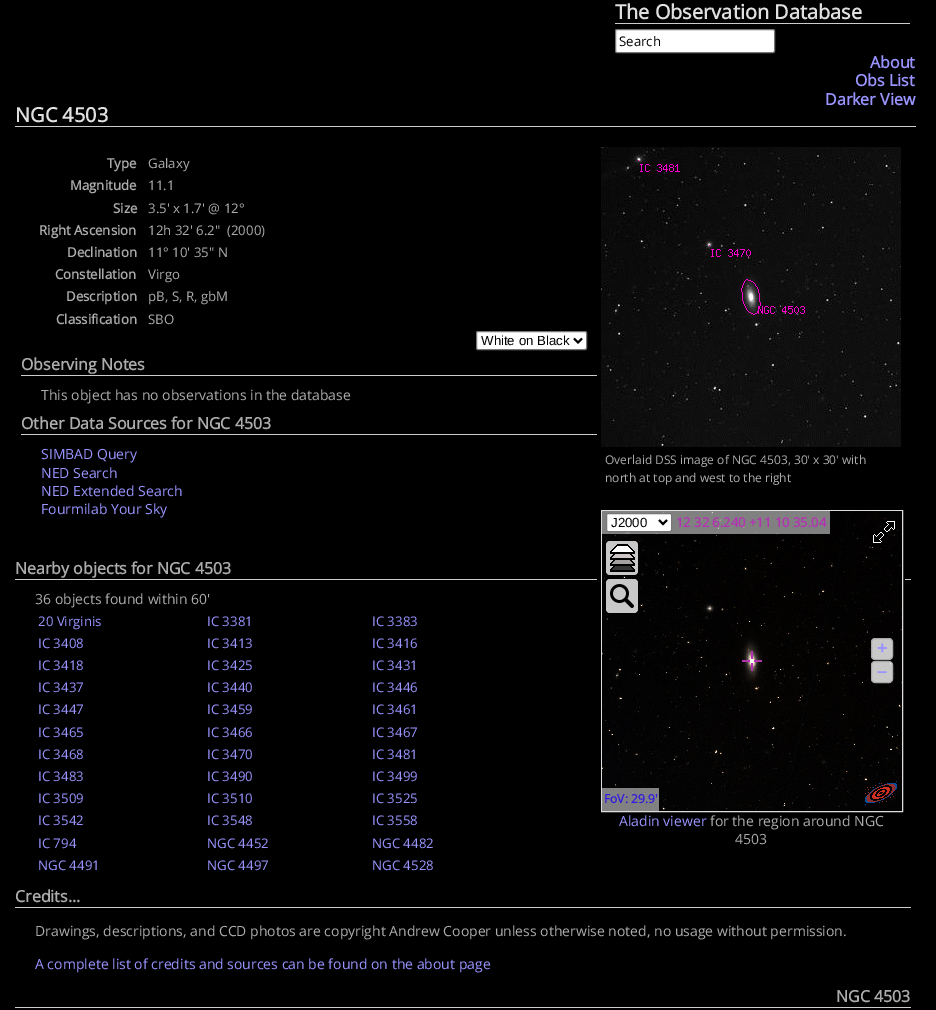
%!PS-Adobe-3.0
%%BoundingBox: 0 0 936 1010
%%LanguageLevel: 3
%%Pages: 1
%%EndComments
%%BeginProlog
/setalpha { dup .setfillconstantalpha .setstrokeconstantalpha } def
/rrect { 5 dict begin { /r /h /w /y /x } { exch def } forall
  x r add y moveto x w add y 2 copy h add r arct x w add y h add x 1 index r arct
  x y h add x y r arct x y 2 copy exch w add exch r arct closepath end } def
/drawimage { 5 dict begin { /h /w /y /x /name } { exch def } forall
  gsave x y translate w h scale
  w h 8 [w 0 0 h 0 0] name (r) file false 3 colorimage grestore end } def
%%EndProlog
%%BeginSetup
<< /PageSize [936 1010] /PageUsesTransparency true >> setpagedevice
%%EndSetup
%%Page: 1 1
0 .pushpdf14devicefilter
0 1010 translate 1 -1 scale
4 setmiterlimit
0 setgray
0 0 936 1010 rectfill
0.8 setgray
615 23 295 1 rectfill
1 setgray
615.5 29.5 159 23 1.5 rrect gsave fill grestore
0.463 setgray
stroke
0.8 setgray
15 126 901 1 rectfill
1 setgray
476.5 331.5 110 18 1.5 rrect gsave fill grestore
0.463 setgray
stroke
0 setgray
2 setlinewidth
newpath 574 338.5 moveto 578 342.5 lineto 582 338.5 lineto stroke
0.8 setgray
21 375 576 1 rectfill
21 434 576 1 rectfill
15 579 896 1 rectfill
0 setgray
597 579 308 1 rectfill
(images/1.raw) 601 147 300 300 drawimage
0.867 setgray
1 setlinewidth
601.5 510.5 301 301 rectstroke
(images/2.raw) 602 511 300 300 drawimage
0.5 setalpha
1 setgray
602 511 228 23 rectfill
1 setalpha
606.5 513.5 65 18 1.5 rrect gsave fill grestore
0.463 setgray
stroke
0 setgray
2 setlinewidth
newpath 659 520 moveto 663 524 lineto 667 520 lineto stroke
(images/3.raw) 873 521 22 22 drawimage
0.8 setalpha
0.98 setgray
606 541 32 34 4 rrect fill
1 setalpha
(images/4.raw) 610 544 25 28 drawimage
0.8 setalpha
606 579 32 34 4 rrect fill
1 setalpha
(images/5.raw) 610 584 24 24 drawimage
(images/6.raw) 742 651 20 20 drawimage
0.8 setalpha
871.5 638.5 21 21 3.5 rrect fill
1 setalpha
0.667 setgray
1 setlinewidth
871.5 638.5 21 21 3.5 rrect stroke
0.8 setalpha
0.98 setgray
871.5 661.5 21 21 3.5 rrect fill
1 setalpha
0.667 setgray
871.5 661.5 21 21 3.5 rrect stroke
0.5 setalpha
1 setgray
602 788 57 23 rectfill
1 setalpha
(images/7.raw) 865 781 32 24 drawimage
0.8 setgray
15 907 896 1 rectfill
15 1007 896 1 rectfill
/OpenSans-Bold [20 0 0 -20 0 0] selectfont
0.878 setgray
615 19 moveto (The Observation Database) show
/OpenSans-Regular [13.25 0 0 -13.25 0 0] selectfont
0 setgray
619 46 moveto (Search) show
/OpenSans-Bold [16 0 0 -16 0 0] selectfont
0.6 0.58 1 setrgbcolor
870 68 moveto (About) show
855 86 moveto (Obs List) show
825 105 moveto (Darker View) show
/OpenSans-Bold [20 0 0 -20 0 0] selectfont
0.878 setgray
15 122 moveto (NGC 4503) show
/OpenSans-Bold [13.25 0 0 -13.25 0 0] selectfont
0.675 setgray
107 168 moveto (Type) show
/OpenSans-Regular [13.25 0 0 -13.25 0 0] selectfont
148 168 moveto (Galaxy) show
/OpenSans-Bold [13.25 0 0 -13.25 0 0] selectfont
70 190 moveto (Magnitude) show
/OpenSans-Regular [13.25 0 0 -13.25 0 0] selectfont
148 190 moveto (11.1) show
/OpenSans-Bold [13.25 0 0 -13.25 0 0] selectfont
113 213 moveto (Size) show
/OpenSans-Regular [13.25 0 0 -13.25 0 0] selectfont
148 213 moveto (3.5' x 1.7' @ 12°) show
/OpenSans-Bold [13.25 0 0 -13.25 0 0] selectfont
39 235 moveto (Right Ascension) show
/OpenSans-Regular [13.25 0 0 -13.25 0 0] selectfont
148 235 moveto (12h 32' 6.2"  \(2000\)) show
/OpenSans-Bold [13.25 0 0 -13.25 0 0] selectfont
67 257 moveto (Declination) show
/OpenSans-Regular [13.25 0 0 -13.25 0 0] selectfont
148 257 moveto (11° 10' 35" N) show
/OpenSans-Bold [13.25 0 0 -13.25 0 0] selectfont
55 279 moveto (Constellation) show
/OpenSans-Regular [13.25 0 0 -13.25 0 0] selectfont
148 279 moveto (Virgo) show
/OpenSans-Bold [13.25 0 0 -13.25 0 0] selectfont
66 301 moveto (Description) show
/OpenSans-Regular [13.25 0 0 -13.25 0 0] selectfont
148 301 moveto (pB, S, R, gbM) show
/OpenSans-Bold [13.25 0 0 -13.25 0 0] selectfont
56 324 moveto (Classification) show
/OpenSans-Regular [13.25 0 0 -13.25 0 0] selectfont
148 324 moveto (SBO) show
/LiberationSans-Regular [13.25 0 0 -13.25 0 0] selectfont
0 setgray
481 345 moveto (White on Black) show
/OpenSans-Bold [16 0 0 -16 0 0] selectfont
0.675 setgray
21 370 moveto (Observing Notes) show
/OpenSans-Regular [14 0 0 -14 0 0] selectfont
41 400 moveto (This object has no observations in the database) show
/OpenSans-Bold [16 0 0 -16 0 0] selectfont
21 429 moveto (Other Data Sources for NGC 4503) show
/OpenSans-Regular [14 0 0 -14 0 0] selectfont
0.6 0.58 1 setrgbcolor
41 459 moveto (SIMBAD Query) show
41 478 moveto (NED Search) show
41 496 moveto (NED Extended Search) show
41 514 moveto (Fourmilab Your Sky) show
/OpenSans-Regular [12 0 0 -12 0 0] selectfont
0.675 setgray
605 464 moveto (Overlaid DSS image of NGC 4503, 30' x 30' with) show
605 482 moveto (north at top and west to the right) show
/LiberationSans-Regular [13.25 0 0 -13.25 0 0] selectfont
0 setgray
611 527 moveto (J2000) show
/OpenSans-Bold [13 0 0 -13 0 0] selectfont
0.698 0.196 0.698 setrgbcolor
676 527 moveto (12 32 6.240 +11 10 35.04) show
/LiberationSans-Bold [18 0 0 -18 0 0] selectfont
0.6 0.58 1 setrgbcolor
877 654 moveto (+) show
877 677 moveto (–) show
/OpenSans-Bold [12 0 0 -12 0 0] selectfont
0.196 0.106 0.875 setrgbcolor
604 803 moveto (FoV: 29.9') show
/OpenSans-Regular [14 0 0 -14 0 0] selectfont
0.6 0.58 1 setrgbcolor
619 826 moveto (Aladin viewer) show
0.675 setgray
710 826 moveto (for the region around NGC) show
735 844 moveto (4503) show
/OpenSans-Bold [16 0 0 -16 0 0] selectfont
15 574 moveto (Nearby objects for NGC 4503) show
/OpenSans-Regular [14 0 0 -14 0 0] selectfont
35 604 moveto (36 objects found within 60') show
/OpenSans-Regular [13.25 0 0 -13.25 0 0] selectfont
0.6 0.58 1 setrgbcolor
38 626 moveto (20 Virginis) show
207 626 moveto (IC 3381) show
372 626 moveto (IC 3383) show
38 648 moveto (IC 3408) show
207 648 moveto (IC 3413) show
372 648 moveto (IC 3416) show
38 670 moveto (IC 3418) show
207 670 moveto (IC 3425) show
372 670 moveto (IC 3431) show
38 692 moveto (IC 3437) show
207 692 moveto (IC 3440) show
372 692 moveto (IC 3446) show
38 714 moveto (IC 3447) show
207 714 moveto (IC 3459) show
372 714 moveto (IC 3461) show
38 737 moveto (IC 3465) show
207 737 moveto (IC 3466) show
372 737 moveto (IC 3467) show
38 759 moveto (IC 3468) show
207 759 moveto (IC 3470) show
372 759 moveto (IC 3481) show
38 781 moveto (IC 3483) show
207 781 moveto (IC 3490) show
372 781 moveto (IC 3499) show
38 803 moveto (IC 3509) show
207 803 moveto (IC 3510) show
372 803 moveto (IC 3525) show
38 825 moveto (IC 3542) show
207 825 moveto (IC 3548) show
372 825 moveto (IC 3558) show
38 848 moveto (IC 794) show
207 848 moveto (NGC 4452) show
372 848 moveto (NGC 4482) show
38 870 moveto (NGC 4491) show
207 870 moveto (NGC 4497) show
372 870 moveto (NGC 4528) show
/OpenSans-Bold [16 0 0 -16 0 0] selectfont
0.675 setgray
15 902 moveto (Credits...) show
/OpenSans-Regular [14 0 0 -14 0 0] selectfont
35 936 moveto (Drawings, descriptions, and CCD photos are copyright Andrew Cooper unless otherwise noted, no usage without permission.) show
0.6 0.58 1 setrgbcolor
35 969 moveto (A complete list of credits and sources can be found on the about page) show
/OpenSans-Bold [16 0 0 -16 0 0] selectfont
0.675 setgray
836 1002 moveto (NGC 4503) show
.poppdf14devicefilter showpage
%%EOF
